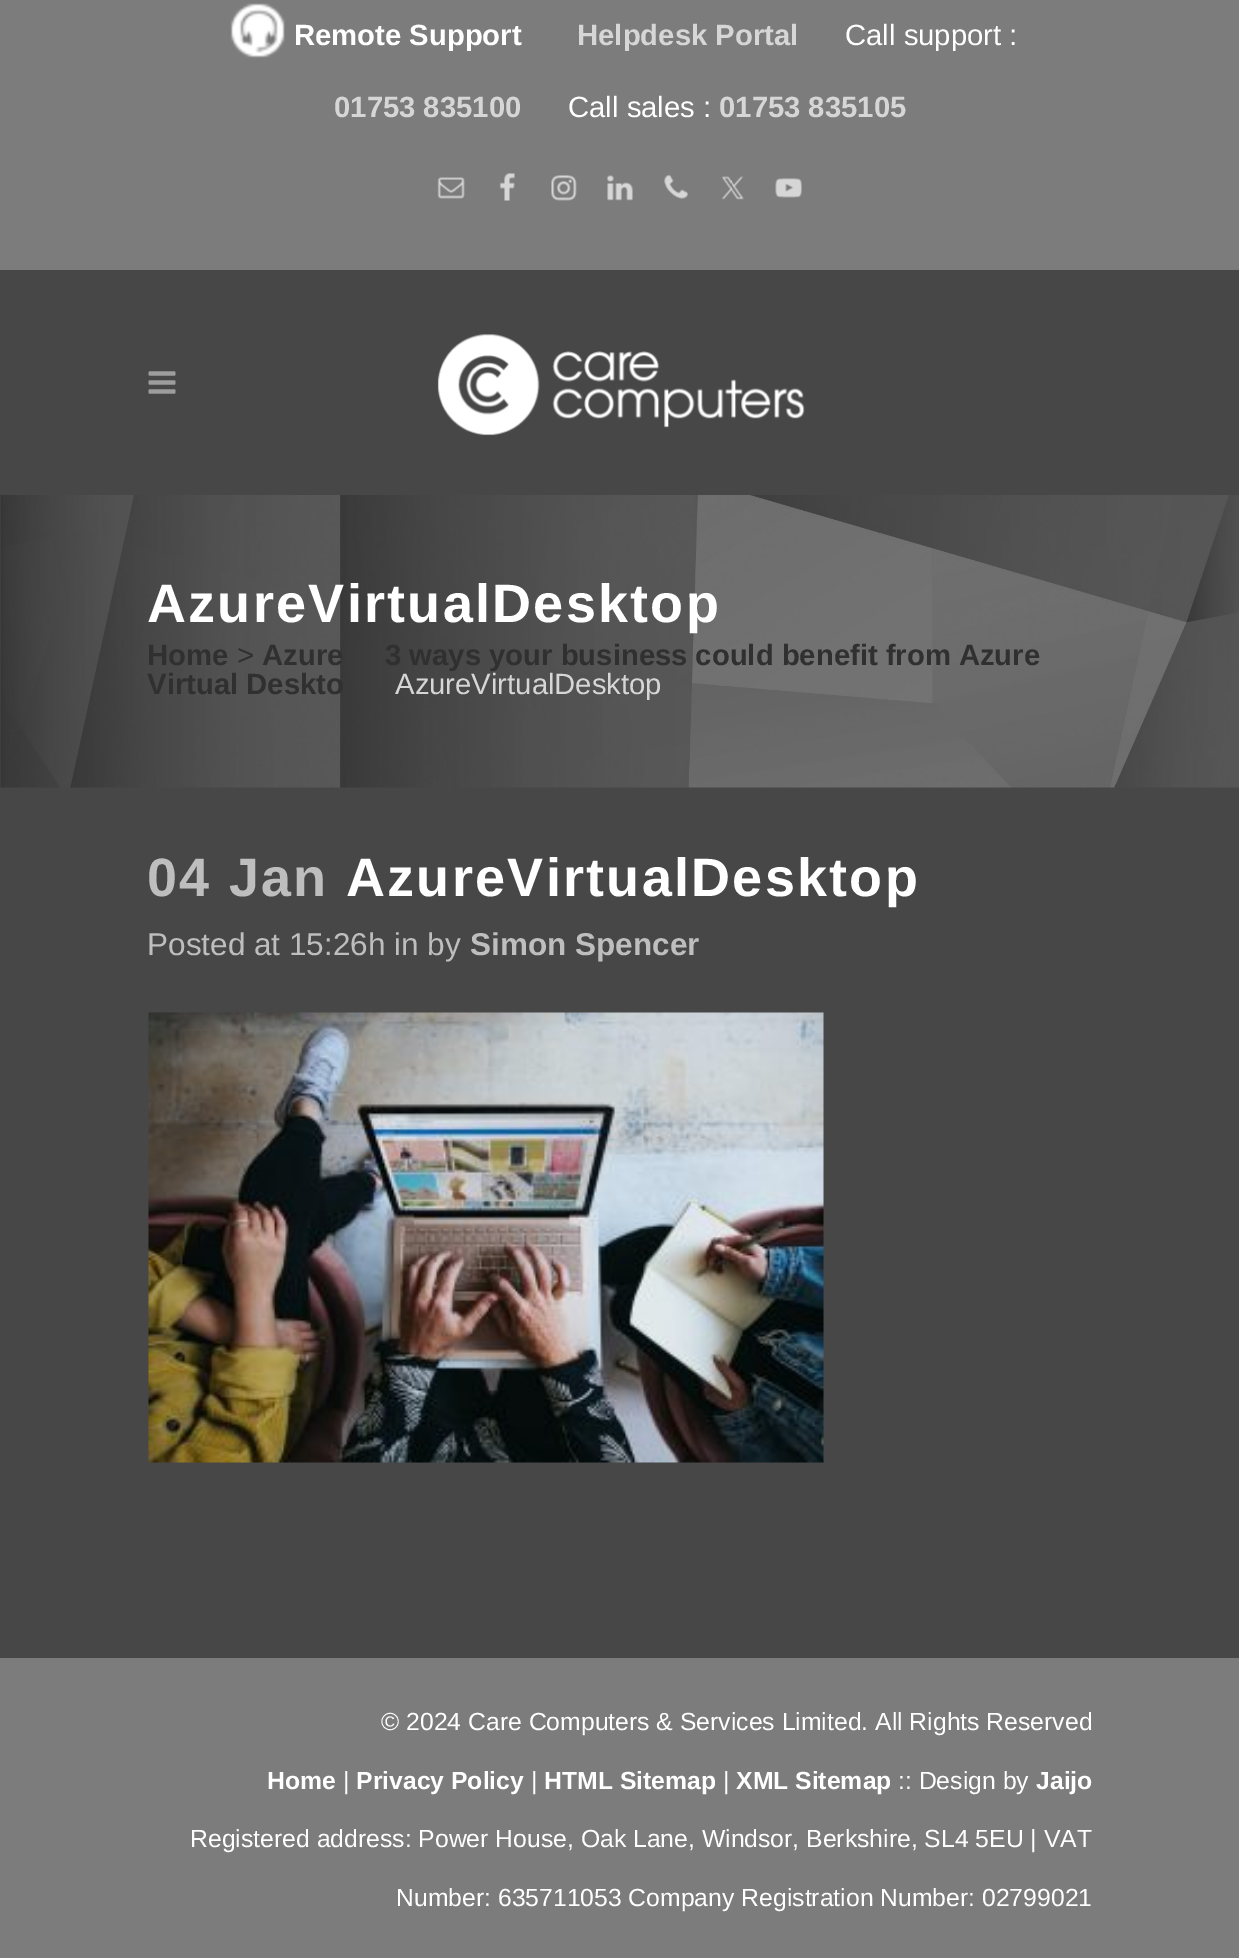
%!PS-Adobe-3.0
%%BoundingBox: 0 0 1239 1958
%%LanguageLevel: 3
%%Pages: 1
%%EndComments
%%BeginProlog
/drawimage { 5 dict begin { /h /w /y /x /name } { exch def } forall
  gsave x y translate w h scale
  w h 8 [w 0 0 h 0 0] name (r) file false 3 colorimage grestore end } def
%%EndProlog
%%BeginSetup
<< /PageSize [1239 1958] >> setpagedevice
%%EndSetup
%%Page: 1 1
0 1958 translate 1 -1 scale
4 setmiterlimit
0.278 setgray
0 0 1239 1958 rectfill
0.486 setgray
0 0 1239 270 rectfill
(images/1.raw) 230 3 55 55 drawimage
(images/2.raw) 437 177 28 22 drawimage
(images/3.raw) 499 173 16 28 drawimage
(images/4.raw) 551 175 26 26 drawimage
(images/5.raw) 607 175 26 26 drawimage
(images/6.raw) 664 174 24 25 drawimage
(images/7.raw) 722 176 22 24 drawimage
(images/8.raw) 775 178 27 20 drawimage
(images/9.raw) 148 371 28 23 drawimage
(images/10.raw) 437 334 368 102 drawimage
(images/11.raw) 0 495 1239 293 drawimage
(images/12.raw) 148 1012 676 451 drawimage
0 1658 1239 300 rectfill
/LiberationSans-Bold [29.25 0 0 -29.25 0 0] selectfont
1 setgray
294 45 moveto (Remote Support) show
0.839 setgray
577 45 moveto (Helpdesk Portal) show
/LiberationSans-Regular [29.25 0 0 -29.25 0 0] selectfont
1 setgray
845 45 moveto (Call support :) show
/LiberationSans-Bold [29.25 0 0 -29.25 0 0] selectfont
0.839 setgray
334 117 moveto (01753 835100) show
/LiberationSans-Regular [29.25 0 0 -29.25 0 0] selectfont
1 setgray
568 117 moveto (Call sales :) show
/LiberationSans-Bold [29.25 0 0 -29.25 0 0] selectfont
0.839 setgray
719 117 moveto (01753 835105) show
/LiberationSans-Bold [54 0 0 -54 0 0] selectfont
1 setgray
147 622 moveto 2.25 0 (AzureVirtualDesktop) ashow
/LiberationSans-Bold [29.25 0 0 -29.25 0 0] selectfont
0.188 setgray
147 665 moveto (Home) show
/LiberationSans-Regular [29.25 0 0 -29.25 0 0] selectfont
237 665 moveto (>) show
/LiberationSans-Bold [29.25 0 0 -29.25 0 0] selectfont
262 665 moveto (Azure) show
385 665 moveto (3 ways your business could benefit from Azure) show
147 694 moveto (Virtual Deskto) show
/LiberationSans-Regular [29.25 0 0 -29.25 0 0] selectfont
0.839 setgray
395 694 moveto (AzureVirtualDesktop) show
/LiberationSans-Bold [54 0 0 -54 0 0] selectfont
0.745 setgray
147 896 moveto 2.25 0 (04 Jan) ashow
1 setgray
346 896 moveto 2.25 0 (AzureVirtualDesktop) ashow
/LiberationSans-Regular [31.5 0 0 -31.5 0 0] selectfont
0.745 setgray
147 955 moveto (Posted at 15:26h in by) show
/LiberationSans-Bold [31.5 0 0 -31.5 0 0] selectfont
470 955 moveto (Simon Spencer) show
/LiberationSans-Regular [24.75 0 0 -24.75 0 0] selectfont
1 setgray
381 1730 moveto (© 2024 Care Computers & Services Limited. All Rights Reserved) show
/LiberationSans-Bold [24.75 0 0 -24.75 0 0] selectfont
267 1789 moveto (Home) show
/LiberationSans-Regular [24.75 0 0 -24.75 0 0] selectfont
343 1789 moveto (|) show
/LiberationSans-Bold [24.75 0 0 -24.75 0 0] selectfont
356 1789 moveto (Privacy Policy) show
/LiberationSans-Regular [24.75 0 0 -24.75 0 0] selectfont
531 1789 moveto (|) show
/LiberationSans-Bold [24.75 0 0 -24.75 0 0] selectfont
544 1789 moveto (HTML Sitemap) show
/LiberationSans-Regular [24.75 0 0 -24.75 0 0] selectfont
723 1789 moveto (|) show
/LiberationSans-Bold [24.75 0 0 -24.75 0 0] selectfont
736 1789 moveto (XML Sitemap) show
/LiberationSans-Regular [24.75 0 0 -24.75 0 0] selectfont
898 1789 moveto (:: Design by) show
/LiberationSans-Bold [24.75 0 0 -24.75 0 0] selectfont
1036 1789 moveto (Jaijo) show
/LiberationSans-Regular [24.75 0 0 -24.75 0 0] selectfont
190 1847 moveto (Registered address: Power House, Oak Lane, Windsor, Berkshire, SL4 5EU | VAT) show
396 1906 moveto (Number: 635711053 Company Registration Number: 02799021) show
showpage
%%EOF
